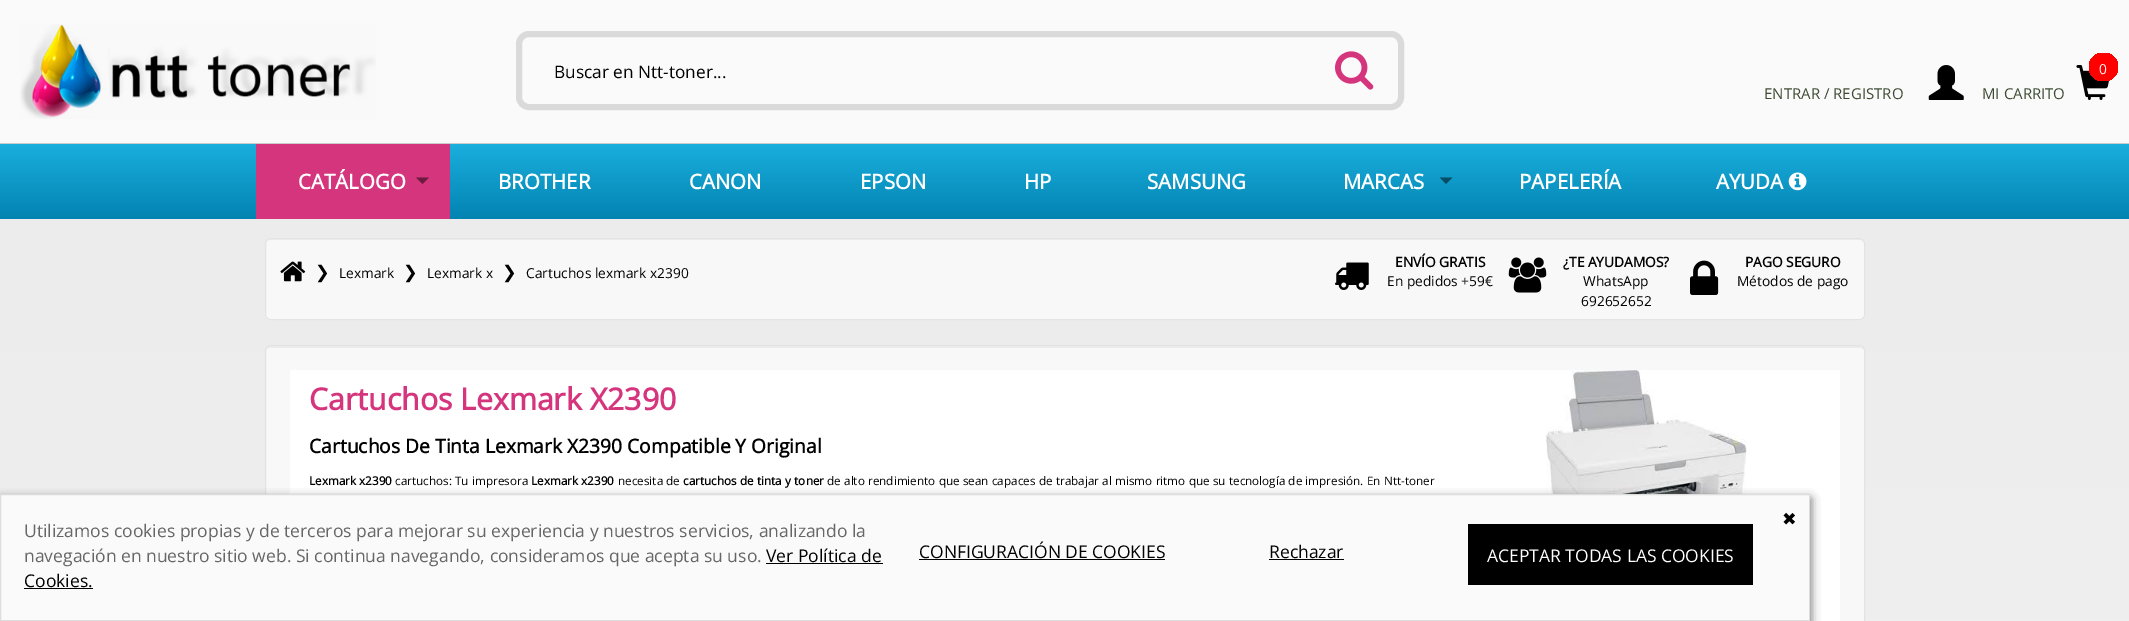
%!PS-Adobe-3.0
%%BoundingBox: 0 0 2129 621
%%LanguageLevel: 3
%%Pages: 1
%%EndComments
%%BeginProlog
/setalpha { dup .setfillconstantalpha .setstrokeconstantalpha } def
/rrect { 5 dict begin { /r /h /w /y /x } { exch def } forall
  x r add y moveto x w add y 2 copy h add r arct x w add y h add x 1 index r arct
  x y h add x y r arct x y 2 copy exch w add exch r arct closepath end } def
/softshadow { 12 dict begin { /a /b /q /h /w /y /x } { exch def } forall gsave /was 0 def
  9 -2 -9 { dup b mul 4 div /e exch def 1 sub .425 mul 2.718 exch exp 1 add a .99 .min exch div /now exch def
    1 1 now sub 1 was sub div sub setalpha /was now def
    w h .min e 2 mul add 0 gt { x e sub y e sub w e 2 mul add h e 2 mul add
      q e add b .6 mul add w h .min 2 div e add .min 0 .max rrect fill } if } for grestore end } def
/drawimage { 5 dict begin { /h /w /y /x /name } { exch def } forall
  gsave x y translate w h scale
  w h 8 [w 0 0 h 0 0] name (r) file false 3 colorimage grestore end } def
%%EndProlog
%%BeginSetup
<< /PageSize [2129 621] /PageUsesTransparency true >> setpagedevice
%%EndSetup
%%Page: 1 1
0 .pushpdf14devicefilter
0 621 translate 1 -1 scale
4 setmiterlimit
1 setgray
0 0 2129 621 rectfill
0.8 setgray
0 143 2129 1 rectfill
0.98 setgray
0 0 2129 143 rectfill
(images/1.raw) 20 24 356 95 drawimage
0.855 setgray
6 setlinewidth
519 34 882 73 10 rrect stroke
(images/2.raw) 1335 51 39 39 drawimage
(images/3.raw) 1928 65 36 35 drawimage
(images/4.raw) 2076 65 34 35 drawimage
gsave 2089 53 29 28 14 rrect clip newpath 2103 67 translate 20 20 scale
<< /ShadingType 3 /ColorSpace /DeviceRGB /Coords [0 0 0 0 0 1] /Extend [true true] /Function << /FunctionType 3 /Domain [0 1] /Functions [<< /FunctionType 2 /Domain [0 1] /C0 [1 0 0] /C1 [1 0 0] /N 1 >> << /FunctionType 2 /Domain [0 1] /C0 [1 0 0] /C1 [1 0 0] /N 1 >> << /FunctionType 2 /Domain [0 1] /C0 [1 1 1] /C1 [1 1 1] /N 1 >>] /Bounds [0.01 0.98] /Encode [0 1 0 1 0 1] >> >> shfill grestore
gsave newpath 0 144 moveto 2129 144 lineto 2129 219 lineto 0 219 lineto closepath clip newpath
<< /ShadingType 2 /ColorSpace /DeviceRGB /Coords [1065 144 1065 219] /Extend [true true] /Function << /FunctionType 2 /Domain [0 1] /C0 [0.102 0.686 0.867] /C1 [0.012 0.514 0.698] /N 1 >> >> shfill grestore
0.835 0.208 0.49 setrgbcolor
256 144 194 75 rectfill
0.42 0.106 0.247 setrgbcolor
newpath 416 177.5 moveto 429 177.5 lineto 422.5 184 lineto closepath fill
0.5 setalpha
0 setgray
newpath 1440 177.5 moveto 1452.5 177.5 lineto 1446 184 lineto closepath fill
1 setalpha
(images/5.raw) 1788 172 19 19 drawimage
gsave newpath 0 219 moveto 2129 219 lineto 2129 621 lineto 0 621 lineto closepath clip newpath
<< /ShadingType 2 /ColorSpace /DeviceRGB /Coords [1065 219 1065 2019] /Extend [true true] /Function << /FunctionType 2 /Domain [0 1] /C0 [0.925 0.925 0.925] /C1 [0.98 0.98 0.98] /N 1 >> >> shfill grestore
0.973 setgray
265 238 1600 82 5 rrect fill
0.925 setgray
newpath 270 240 moveto 1860 240 lineto 1862 240 1864 242 1864 244 curveto 1864 243 lineto 1864 241 1862 239 1860 239 curveto 270 239 lineto 268 239 266 241 266 243 curveto 266 244 lineto 266 242 268 240 270 240 curveto closepath fill
0.89 setgray
1 setlinewidth
265.5 238.5 1599 81 4.5 rrect stroke
(images/6.raw) 280 261 26 21 drawimage
(images/7.raw) 1335 262 34 28 drawimage
(images/8.raw) 1508 257 39 36 drawimage
(images/9.raw) 1690 260 29 35 drawimage
0.973 setgray
265 345 1600 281 5 rrect fill
0.925 setgray
newpath 270 348 moveto 1860 348 lineto 1862 348 1864 349 1864 351 curveto 1864 350 lineto 1864 348 1862 346 1860 346 curveto 270 346 lineto 268 346 266 348 266 350 curveto 266 351 lineto 266 349 268 348 270 348 curveto closepath fill
0.89 setgray
265.5 345.5 1599 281 4.5 rrect stroke
1 setgray
290 370 1550 251 rectfill
(images/10.raw) 1546 370 201 124 drawimage
0.267 setgray
0 499 1810 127 0 5 1 softshadow
0.98 setgray
newpath 0.5 494.5 moveto 1809.5 494.5 lineto 1809.5 620.5 lineto 0.5 620.5 lineto closepath gsave fill grestore
0.867 setgray
stroke
0 setgray
766 563 117 1 rectfill
24 588 69 1 rectfill
919 559 246 1 rectfill
1269 559 75 1 rectfill
1468 524 285 61 rectfill
/OpenSans-Regular [17.25 0 0 -17.25 0 0] selectfont
554 78 moveto (Buscar en Ntt-toner...) show
/OpenSans-Regular [15 0 0 -15 0 0] selectfont
0.239 0.294 0.196 setrgbcolor
1764 99 moveto (ENTRAR / REGISTRO) show
/OpenSans-Regular [13.75 0 0 -13.75 0 0] selectfont
1 setgray
2099 74 moveto (0) show
/OpenSans-Regular [15 0 0 -15 0 0] selectfont
0.239 0.294 0.196 setrgbcolor
1982 99 moveto (MI CARRITO) show
/OpenSans-Bold [20.5 0 0 -20.5 0 0] selectfont
1 setgray
298 189 moveto (CATÁLOGO) show
498 189 moveto (BROTHER) show
689 189 moveto (CANON) show
860 189 moveto (EPSON) show
1024 189 moveto (HP) show
1147 189 moveto (SAMSUNG) show
1343 189 moveto (MARCAS) show
1519 189 moveto (PAPELERÍA) show
1716 189 moveto (AYUDA) show
/DejaVuSans-Regular [17.5 0 0 -17.5 0 0] selectfont
0 setgray
315 278 moveto (❯) show
/OpenSans-Regular [13.75 0 0 -13.75 0 0] selectfont
339 278 moveto (Lexmark) show
/DejaVuSans-Regular [17.5 0 0 -17.5 0 0] selectfont
403 278 moveto (❯) show
/OpenSans-Regular [13.75 0 0 -13.75 0 0] selectfont
427 278 moveto (Lexmark x) show
/DejaVuSans-Regular [17.5 0 0 -17.5 0 0] selectfont
502 278 moveto (❯) show
/OpenSans-Regular [13.75 0 0 -13.75 0 0] selectfont
526 278 moveto (Cartuchos lexmark x2390) show
/OpenSans-Bold [13.75 0 0 -13.75 0 0] selectfont
1395 267 moveto (ENVÍO GRATIS) show
/OpenSans-Regular [13.75 0 0 -13.75 0 0] selectfont
1387 286 moveto (En pedidos +59€) show
/OpenSans-Bold [13.75 0 0 -13.75 0 0] selectfont
1563 267 moveto (¿TE AYUDAMOS?) show
/OpenSans-Regular [13.75 0 0 -13.75 0 0] selectfont
1583 286 moveto (WhatsApp) show
1581 306 moveto (692652652) show
/OpenSans-Bold [13.75 0 0 -13.75 0 0] selectfont
1745 267 moveto (PAGO SEGURO) show
/OpenSans-Regular [13.75 0 0 -13.75 0 0] selectfont
1737 286 moveto (Métodos de pago) show
/OpenSans-Bold [30.25 0 0 -30.25 0 0] selectfont
0.835 0.208 0.49 setrgbcolor
309 410 moveto (Cartuchos Lexmark X2390) show
/OpenSans-Bold [19.25 0 0 -19.25 0 0] selectfont
0 setgray
309 453 moveto (Cartuchos De Tinta Lexmark X2390 Compatible Y Original) show
/OpenSans-Bold [11.7 0 0 -11.7 0 0] selectfont
309 485 moveto (Lexmark x2390) show
/OpenSans-Regular [11.7 0 0 -11.7 0 0] selectfont
395 485 moveto 0.25 0 32 (cartuchos: Tu impresora) widthshow
/OpenSans-Bold [11.7 0 0 -11.7 0 0] selectfont
531 485 moveto (Lexmark x2390) show
/OpenSans-Regular [11.7 0 0 -11.7 0 0] selectfont
618 485 moveto (necesita de) show
/OpenSans-Bold [11.7 0 0 -11.7 0 0] selectfont
683 485 moveto 0.25 0 32 (cartuchos de tinta y toner) widthshow
/OpenSans-Regular [11.7 0 0 -11.7 0 0] selectfont
827 485 moveto 0.25 0 32 (de alto rendimiento que sean capaces de trabajar al mismo ritmo que su tecnología de impresión. En Ntt-toner) widthshow
/DejaVuSans-Regular [17.5 0 0 -17.5 0 0] selectfont
1782 525 moveto (✖) show
/OpenSans-Regular [17.5 0 0 -17.5 0 0] selectfont
0.4 setgray
24 537 moveto (Utilizamos cookies propias y de terceros para mejorar su experiencia y nuestros servicios, analizando la) show
24 562 moveto (navegación en nuestro sitio web. Si continua navegando, consideramos que acepta su uso.) show
0 setgray
766 562 moveto (Ver Política de) show
24 587 moveto (Cookies.) show
919 558 moveto (CONFIGURACIÓN DE COOKIES) show
1269 558 moveto (Rechazar) show
1 setgray
1487 562 moveto (ACEPTAR TODAS LAS COOKIES) show
.poppdf14devicefilter showpage
%%EOF
